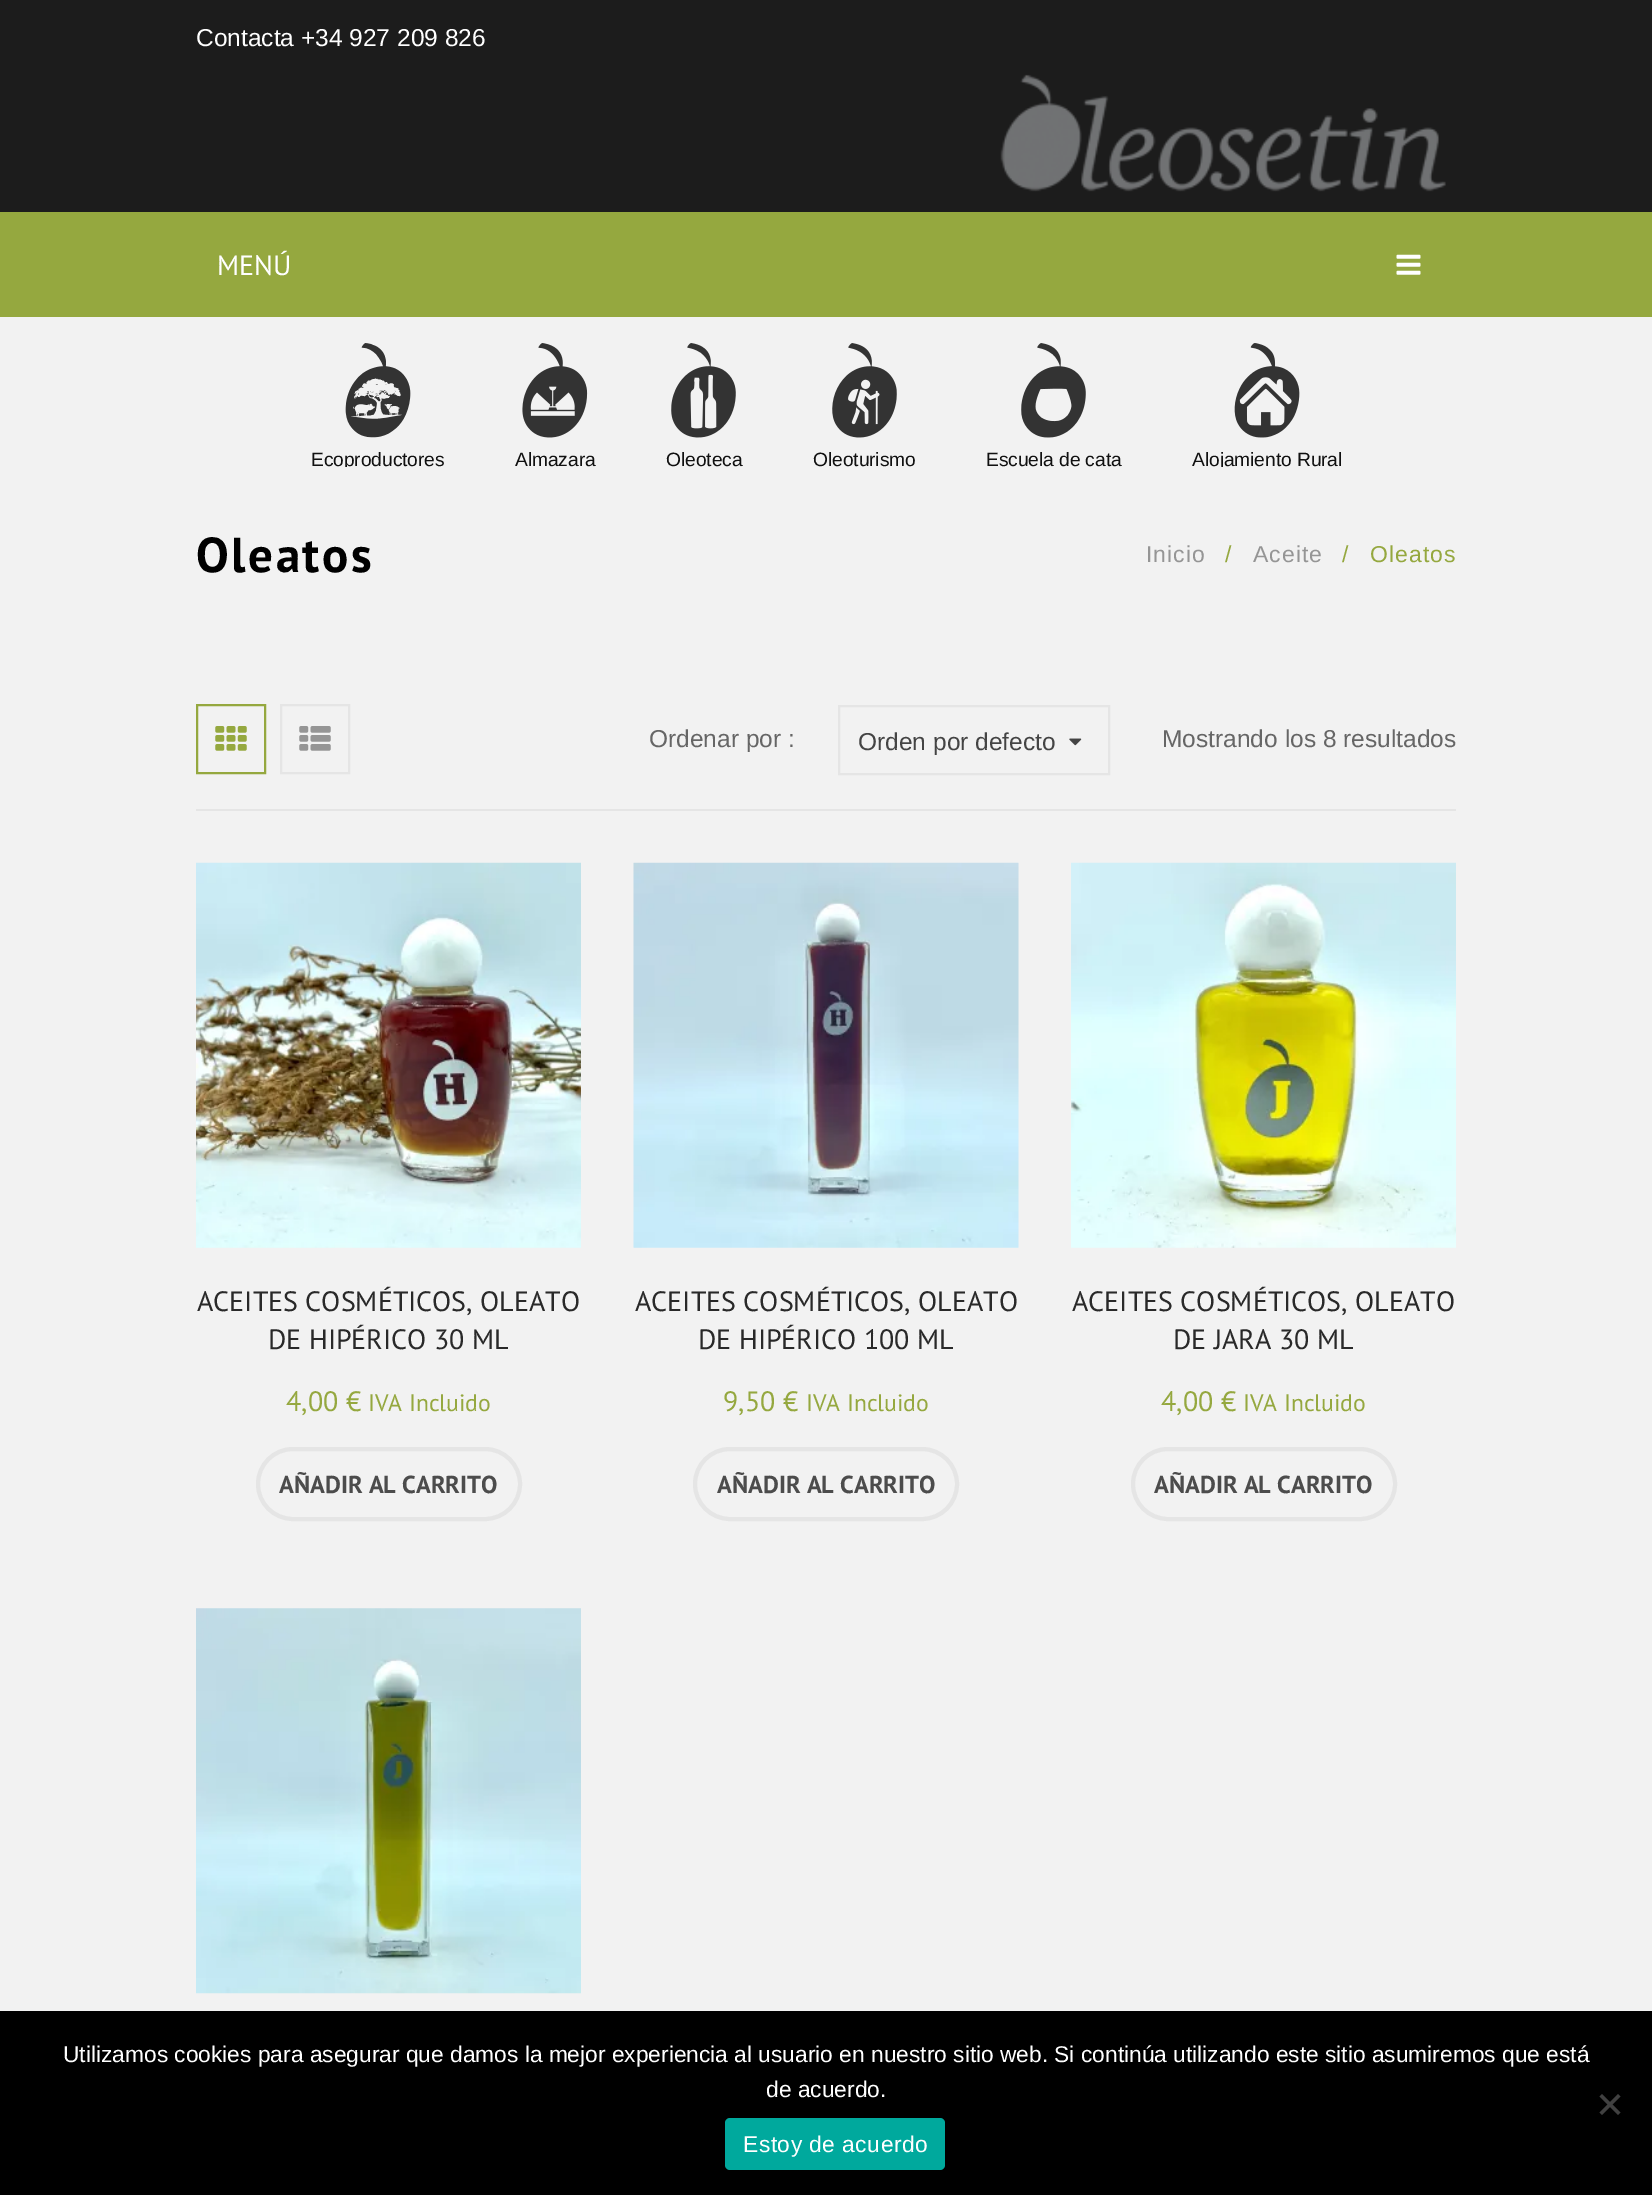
%!PS-Adobe-3.0
%%BoundingBox: 0 0 1652 2195
%%LanguageLevel: 3
%%Pages: 1
%%EndComments
%%BeginProlog
/rrect { 5 dict begin { /r /h /w /y /x } { exch def } forall
  x r add y moveto x w add y 2 copy h add r arct x w add y h add x 1 index r arct
  x y h add x y r arct x y 2 copy exch w add exch r arct closepath end } def
/drawimage { 5 dict begin { /h /w /y /x /name } { exch def } forall
  gsave x y translate w h scale
  w h 8 [w 0 0 h 0 0] name (r) file false 3 colorimage grestore end } def
%%EndProlog
%%BeginSetup
<< /PageSize [1652 2195] >> setpagedevice
%%EndSetup
%%Page: 1 1
0 2195 translate 1 -1 scale
4 setmiterlimit
0.949 setgray
0 0 1652 2195 rectfill
0.11 setgray
0 0 1652 212 rectfill
(images/1.raw) 1000 74 446 118 drawimage
0.584 0.659 0.247 setrgbcolor
0 212 1652 105 rectfill
(images/2.raw) 1396 254 25 21 drawimage
(images/3.raw) 345 343 66 95 drawimage
(images/4.raw) 522 343 66 95 drawimage
(images/5.raw) 671 343 65 95 drawimage
(images/6.raw) 832 343 65 95 drawimage
(images/7.raw) 1021 343 65 95 drawimage
(images/8.raw) 1234 343 66 95 drawimage
0.898 setgray
196 809 1260 2 rectfill
0.584 0.659 0.247 setrgbcolor
2 setlinewidth
197 705 68 68 rectstroke
(images/9.raw) 215 726 32 25 drawimage
0.898 setgray
281 705 68 68 rectstroke
(images/10.raw) 299 726 32 25 drawimage
839 706 270 68 rectstroke
(images/11.raw) 1069 738 13 8 drawimage
(images/12.raw) 196 862 385 386 drawimage
4 setlinewidth
258 1449 262 70 35 rrect stroke
(images/13.raw) 633 862 386 386 drawimage
695 1449 262 70 35 rrect stroke
(images/14.raw) 1071 862 385 386 drawimage
1133 1449 262 70 35 rrect stroke
(images/15.raw) 196 1608 385 386 drawimage
0 setgray
0 2011 1652 184 rectfill
0.251 setgray
newpath 1618 2094 moveto 1620.5 2096.5 lineto 1602 2115 lineto 1599.5 2112.5 lineto closepath fill
newpath 1599.5 2096.5 moveto 1602 2094 lineto 1620.5 2112.5 lineto 1618 2115 lineto closepath fill
0 0.663 0.616 setrgbcolor
725 2118 220 52 5 rrect fill
/LiberationSans-Regular [24.5 0 0 -24.5 0 0] selectfont
1 setgray
196 46 moveto (Contacta +34 927 209 826) show
/PTSans-Regular [28 0 0 -28 0 0] selectfont
217 275 moveto (MENÚ) show
gsave
282 338 1088 129 rectclip
/LiberationSans-Regular [19.25 0 0 -19.25 0 0] selectfont
0.067 setgray
311 466 moveto -0.1 0 (Ecoproductores) ashow
grestore
/LiberationSans-Regular [19.25 0 0 -19.25 0 0] selectfont
0.067 setgray
515 466 moveto -0.1 0 (Almazara) ashow
666 466 moveto -0.1 0 (Oleoteca) ashow
813 466 moveto -0.1 0 (Oleoturismo) ashow
986 466 moveto -0.1 0 (Escuela de cata) ashow
gsave
282 338 1088 129 rectclip
1192 466 moveto -0.1 0 (Alojamiento Rural) ashow
grestore
/PTSans-Bold [49 0 0 -49 0 0] selectfont
0 setgray
196 572 moveto 2.5 0 (Oleatos) ashow
/LiberationSans-Regular [23 0 0 -23 0 0] selectfont
0.584 setgray
1146 562 moveto 1 0 (Inicio) ashow
0.584 0.659 0.247 setrgbcolor
1225 562 moveto 1 0 (/) ashow
0.584 setgray
1253 562 moveto 1 0 (Aceite) ashow
0.584 0.659 0.247 setrgbcolor
1342 562 moveto 1 0 (/) ashow
1370 562 moveto 1 0 (Oleatos) ashow
/LiberationSans-Regular [24.5 0 0 -24.5 0 0] selectfont
0.4 setgray
649 747 moveto (Ordenar por :) show
0.267 setgray
858 750 moveto (Orden por defecto) show
0.4 setgray
1162 747 moveto (Mostrando los 8 resultados) show
/PTSans-Regular [28 0 0 -28 0 0] selectfont
0.161 setgray
197 1311 moveto (ACEITES COSMÉTICOS, OLEATO) show
268 1349 moveto (DE HIPÉRICO 30 ML) show
0.584 0.659 0.247 setrgbcolor
286 1411 moveto (4,00 €) show
/PTSans-Regular [23.75 0 0 -23.75 0 0] selectfont
368 1411 moveto (IVA Incluido) show
/PTSans-Bold [24.5 0 0 -24.5 0 0] selectfont
0.298 setgray
279 1493 moveto (AÑADIR AL CARRITO) show
/PTSans-Regular [28 0 0 -28 0 0] selectfont
0.161 setgray
635 1311 moveto (ACEITES COSMÉTICOS, OLEATO) show
698 1349 moveto (DE HIPÉRICO 100 ML) show
0.584 0.659 0.247 setrgbcolor
723 1411 moveto (9,50 €) show
/PTSans-Regular [23.75 0 0 -23.75 0 0] selectfont
806 1411 moveto (IVA Incluido) show
/PTSans-Bold [24.5 0 0 -24.5 0 0] selectfont
0.298 setgray
717 1493 moveto (AÑADIR AL CARRITO) show
/PTSans-Regular [28 0 0 -28 0 0] selectfont
0.161 setgray
1072 1311 moveto (ACEITES COSMÉTICOS, OLEATO) show
1173 1349 moveto (DE JARA 30 ML) show
0.584 0.659 0.247 setrgbcolor
1161 1411 moveto (4,00 €) show
/PTSans-Regular [23.75 0 0 -23.75 0 0] selectfont
1243 1411 moveto (IVA Incluido) show
/PTSans-Bold [24.5 0 0 -24.5 0 0] selectfont
0.298 setgray
1154 1493 moveto (AÑADIR AL CARRITO) show
/LiberationSans-Regular [22.75 0 0 -22.75 0 0] selectfont
1 setgray
63 2062 moveto (Utilizamos cookies para asegurar que damos la mejor experiencia al usuario en nuestro sitio web. Si continúa utilizando este sitio asumiremos que está) show
766 2097 moveto (de acuerdo.) show
743 2152 moveto 0.5 0 (Estoy de acuerdo) ashow
showpage
%%EOF
